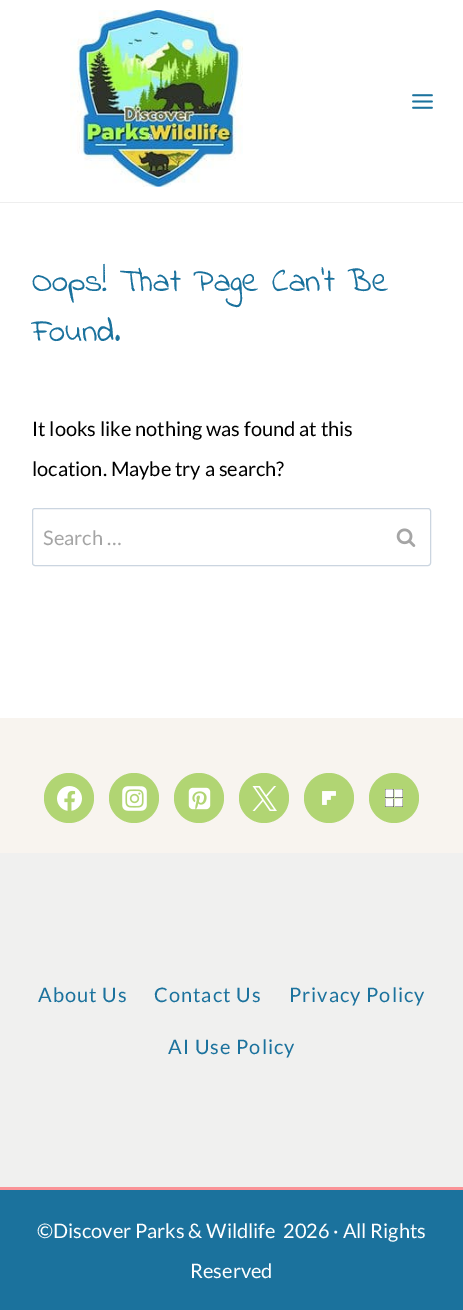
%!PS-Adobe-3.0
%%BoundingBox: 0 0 463 1310
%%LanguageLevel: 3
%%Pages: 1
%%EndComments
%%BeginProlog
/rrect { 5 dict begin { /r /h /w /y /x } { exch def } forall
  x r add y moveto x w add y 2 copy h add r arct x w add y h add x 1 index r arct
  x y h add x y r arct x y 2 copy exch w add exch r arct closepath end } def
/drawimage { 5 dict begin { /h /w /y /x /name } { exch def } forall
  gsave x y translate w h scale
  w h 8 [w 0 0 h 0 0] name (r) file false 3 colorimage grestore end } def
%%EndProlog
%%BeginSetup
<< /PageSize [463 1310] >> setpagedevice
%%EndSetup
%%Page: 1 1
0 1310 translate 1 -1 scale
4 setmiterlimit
1 setgray
0 0 463 1310 rectfill
0.933 setgray
0 202 463 1 rectfill
(images/1.raw) 70 10 173 177 drawimage
(images/2.raw) 412 94 21 15 drawimage
0.796 0.835 0.878 setrgbcolor
32.5 508.5 398 57 2.5 rrect stroke
(images/3.raw) 396 528 20 19 drawimage
0.973 0.957 0.937 setrgbcolor
0 718 463 135 rectfill
0.694 0.835 0.451 setrgbcolor
newpath 69 798 25 0 360 arc closepath fill
(images/4.raw) 57 786 25 25 drawimage
newpath 134 798 25 0 360 arc closepath fill
(images/5.raw) 122 786 25 25 drawimage
newpath 199 798 25 0 360 arc closepath fill
(images/6.raw) 188 787 23 23 drawimage
newpath 264 798 25 0 360 arc closepath fill
(images/7.raw) 252 786 25 25 drawimage
newpath 329 798 25 0 360 arc closepath fill
(images/8.raw) 322 791 14 14 drawimage
newpath 394 798 25 0 360 arc closepath fill
(images/9.raw) 385 789 18 18 drawimage
0.941 0.941 0.937 setrgbcolor
0 853 463 334 rectfill
0.106 0.447 0.616 setrgbcolor
0 1190 463 120 rectfill
0.98 0.576 0.592 setrgbcolor
0 1187 463 3 rectfill
/IndieFlower-Regular [33 0 0 -33 0 0] selectfont
0.106 0.447 0.616 setrgbcolor
32 291 moveto (Oops! That Page Can’t Be) show
32 341 moveto (Found.) show
/Lato-Regular [20 0 0 -20 0 0] selectfont
0 setgray
32 436 moveto (It looks like nothing was found at this) show
32 476 moveto (location. Maybe try a search?) show
0.647 setgray
43 545 moveto (Search …) show
0.106 0.447 0.616 setrgbcolor
38 1002 moveto 1 0 (About Us) ashow
154 1002 moveto 1 0 (Contact Us) ashow
289 1002 moveto 1 0 (Privacy Policy) ashow
168 1054 moveto 1 0 (AI Use Policy) ashow
1 setgray
37 1238 moveto (©Discover Parks & Wildlife  2026 · All Rights) show
190 1278 moveto (Reserved) show
showpage
%%EOF
